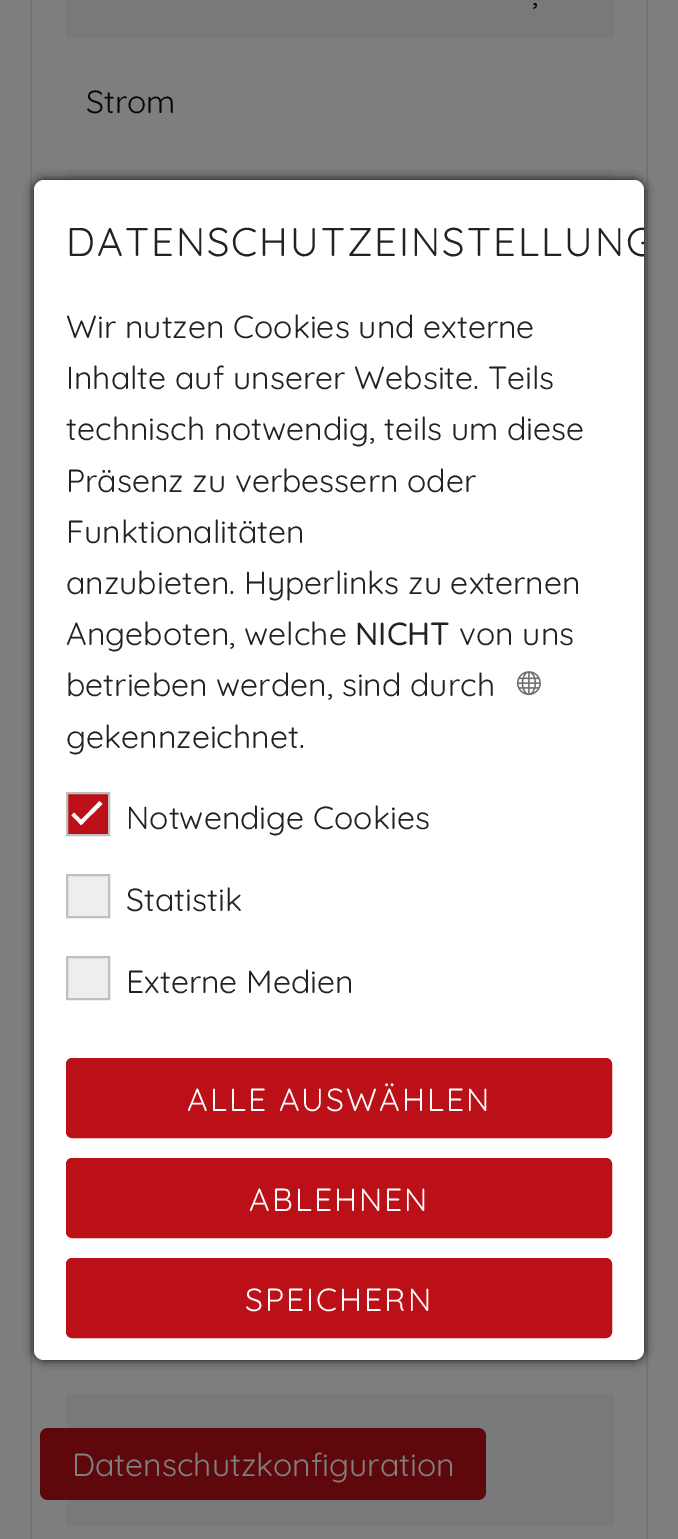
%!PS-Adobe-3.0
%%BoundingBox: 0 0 678 1539
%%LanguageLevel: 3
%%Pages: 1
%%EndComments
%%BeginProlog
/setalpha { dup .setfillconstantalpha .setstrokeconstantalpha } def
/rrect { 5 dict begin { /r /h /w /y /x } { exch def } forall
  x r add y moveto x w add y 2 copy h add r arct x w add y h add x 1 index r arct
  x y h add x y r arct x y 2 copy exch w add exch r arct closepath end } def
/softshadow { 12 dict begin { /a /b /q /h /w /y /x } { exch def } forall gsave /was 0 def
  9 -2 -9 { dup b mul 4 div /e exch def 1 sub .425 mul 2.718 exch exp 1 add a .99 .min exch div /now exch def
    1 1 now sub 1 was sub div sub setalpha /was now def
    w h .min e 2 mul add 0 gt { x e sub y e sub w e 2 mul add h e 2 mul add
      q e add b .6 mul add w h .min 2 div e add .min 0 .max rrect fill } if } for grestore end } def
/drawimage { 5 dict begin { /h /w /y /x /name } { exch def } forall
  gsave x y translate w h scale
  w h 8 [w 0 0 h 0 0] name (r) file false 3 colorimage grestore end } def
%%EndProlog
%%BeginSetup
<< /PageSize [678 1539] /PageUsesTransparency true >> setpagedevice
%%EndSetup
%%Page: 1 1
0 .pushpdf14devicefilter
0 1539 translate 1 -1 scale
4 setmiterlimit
0.494 setgray
0 0 678 1539 rectfill
0.451 setgray
2 setlinewidth
31 -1 616 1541 rectstroke
0.475 setgray
66 0 548 38 rectfill
66 170 548 10 rectfill
66 1394 548 132 rectfill
0.039 setgray
34 180 610 1180 10 5 1 softshadow
1 setgray
34 180 610 1180 10 rrect fill
(images/1.raw) 516 671 25 25 drawimage
0.737 0.063 0.094 setrgbcolor
newpath 67 793 moveto 109 793 lineto 109 835 lineto 67 835 lineto closepath gsave fill grestore
0.749 setgray
stroke
1 setgray
newpath 99.5 801 moveto 102.5 804 lineto 81 825 lineto 78.5 822.5 lineto closepath fill
newpath 74 812.5 moveto 84 822.5 lineto 81 825 lineto 71.5 815.5 lineto closepath fill
0.933 setgray
newpath 67 875 moveto 109 875 lineto 109 917 lineto 67 917 lineto closepath gsave fill grestore
0.749 setgray
stroke
0.933 setgray
newpath 67 957 moveto 109 957 lineto 109 999 lineto 67 999 lineto closepath gsave fill grestore
0.749 setgray
stroke
0.737 0.063 0.094 setrgbcolor
67 1059 544 78 5 rrect gsave fill grestore
stroke
67 1159 544 78 5 rrect gsave fill grestore
stroke
67 1259 544 78 5 rrect gsave fill grestore
stroke
0.369 0.031 0.047 setrgbcolor
40 1428 446 72 8 rrect fill
/Quicksand-Regular [32 0 0 -32 0 0] selectfont
0.02 setgray
532 5 moveto (,) show
86 113 moveto (Strom) show
gsave
34 180 610 1180 10 rrect clip newpath
/Quicksand-Regular [40 0 0 -40 0 0] selectfont
0.133 setgray
66 256 moveto 2 0 (DATENSCHUTZEINSTELLUNG) ashow
grestore
0.133 setgray
66 338 moveto (Wir nutzen Cookies und externe) show
66 389 moveto (Inhalte auf unserer Website. Teils) show
66 440 moveto (technisch notwendig, teils um diese) show
66 492 moveto (Präsenz zu verbessern oder) show
66 543 moveto (Funktionalitäten) show
66 594 moveto (anzubieten. Hyperlinks zu externen) show
66 645 moveto (Angeboten, welche) show
/Quicksand-Medium [32 0 0 -32 0 0] selectfont
355 645 moveto (NICHT) show
/Quicksand-Regular [32 0 0 -32 0 0] selectfont
459 645 moveto (von uns) show
66 696 moveto (betrieben werden, sind durch) show
66 748 moveto (gekennzeichnet.) show
126 829 moveto (Notwendige Cookies) show
126 911 moveto (Statistik) show
126 993 moveto (Externe Medien) show
1 setgray
187 1111 moveto 2 0 (ALLE AUSWÄHLEN) ashow
249 1211 moveto 2 0 (ABLEHNEN) ashow
245 1311 moveto 2 0 (SPEICHERN) ashow
0.502 setgray
72 1476 moveto (Datenschutzkonfiguration) show
.poppdf14devicefilter showpage
%%EOF
